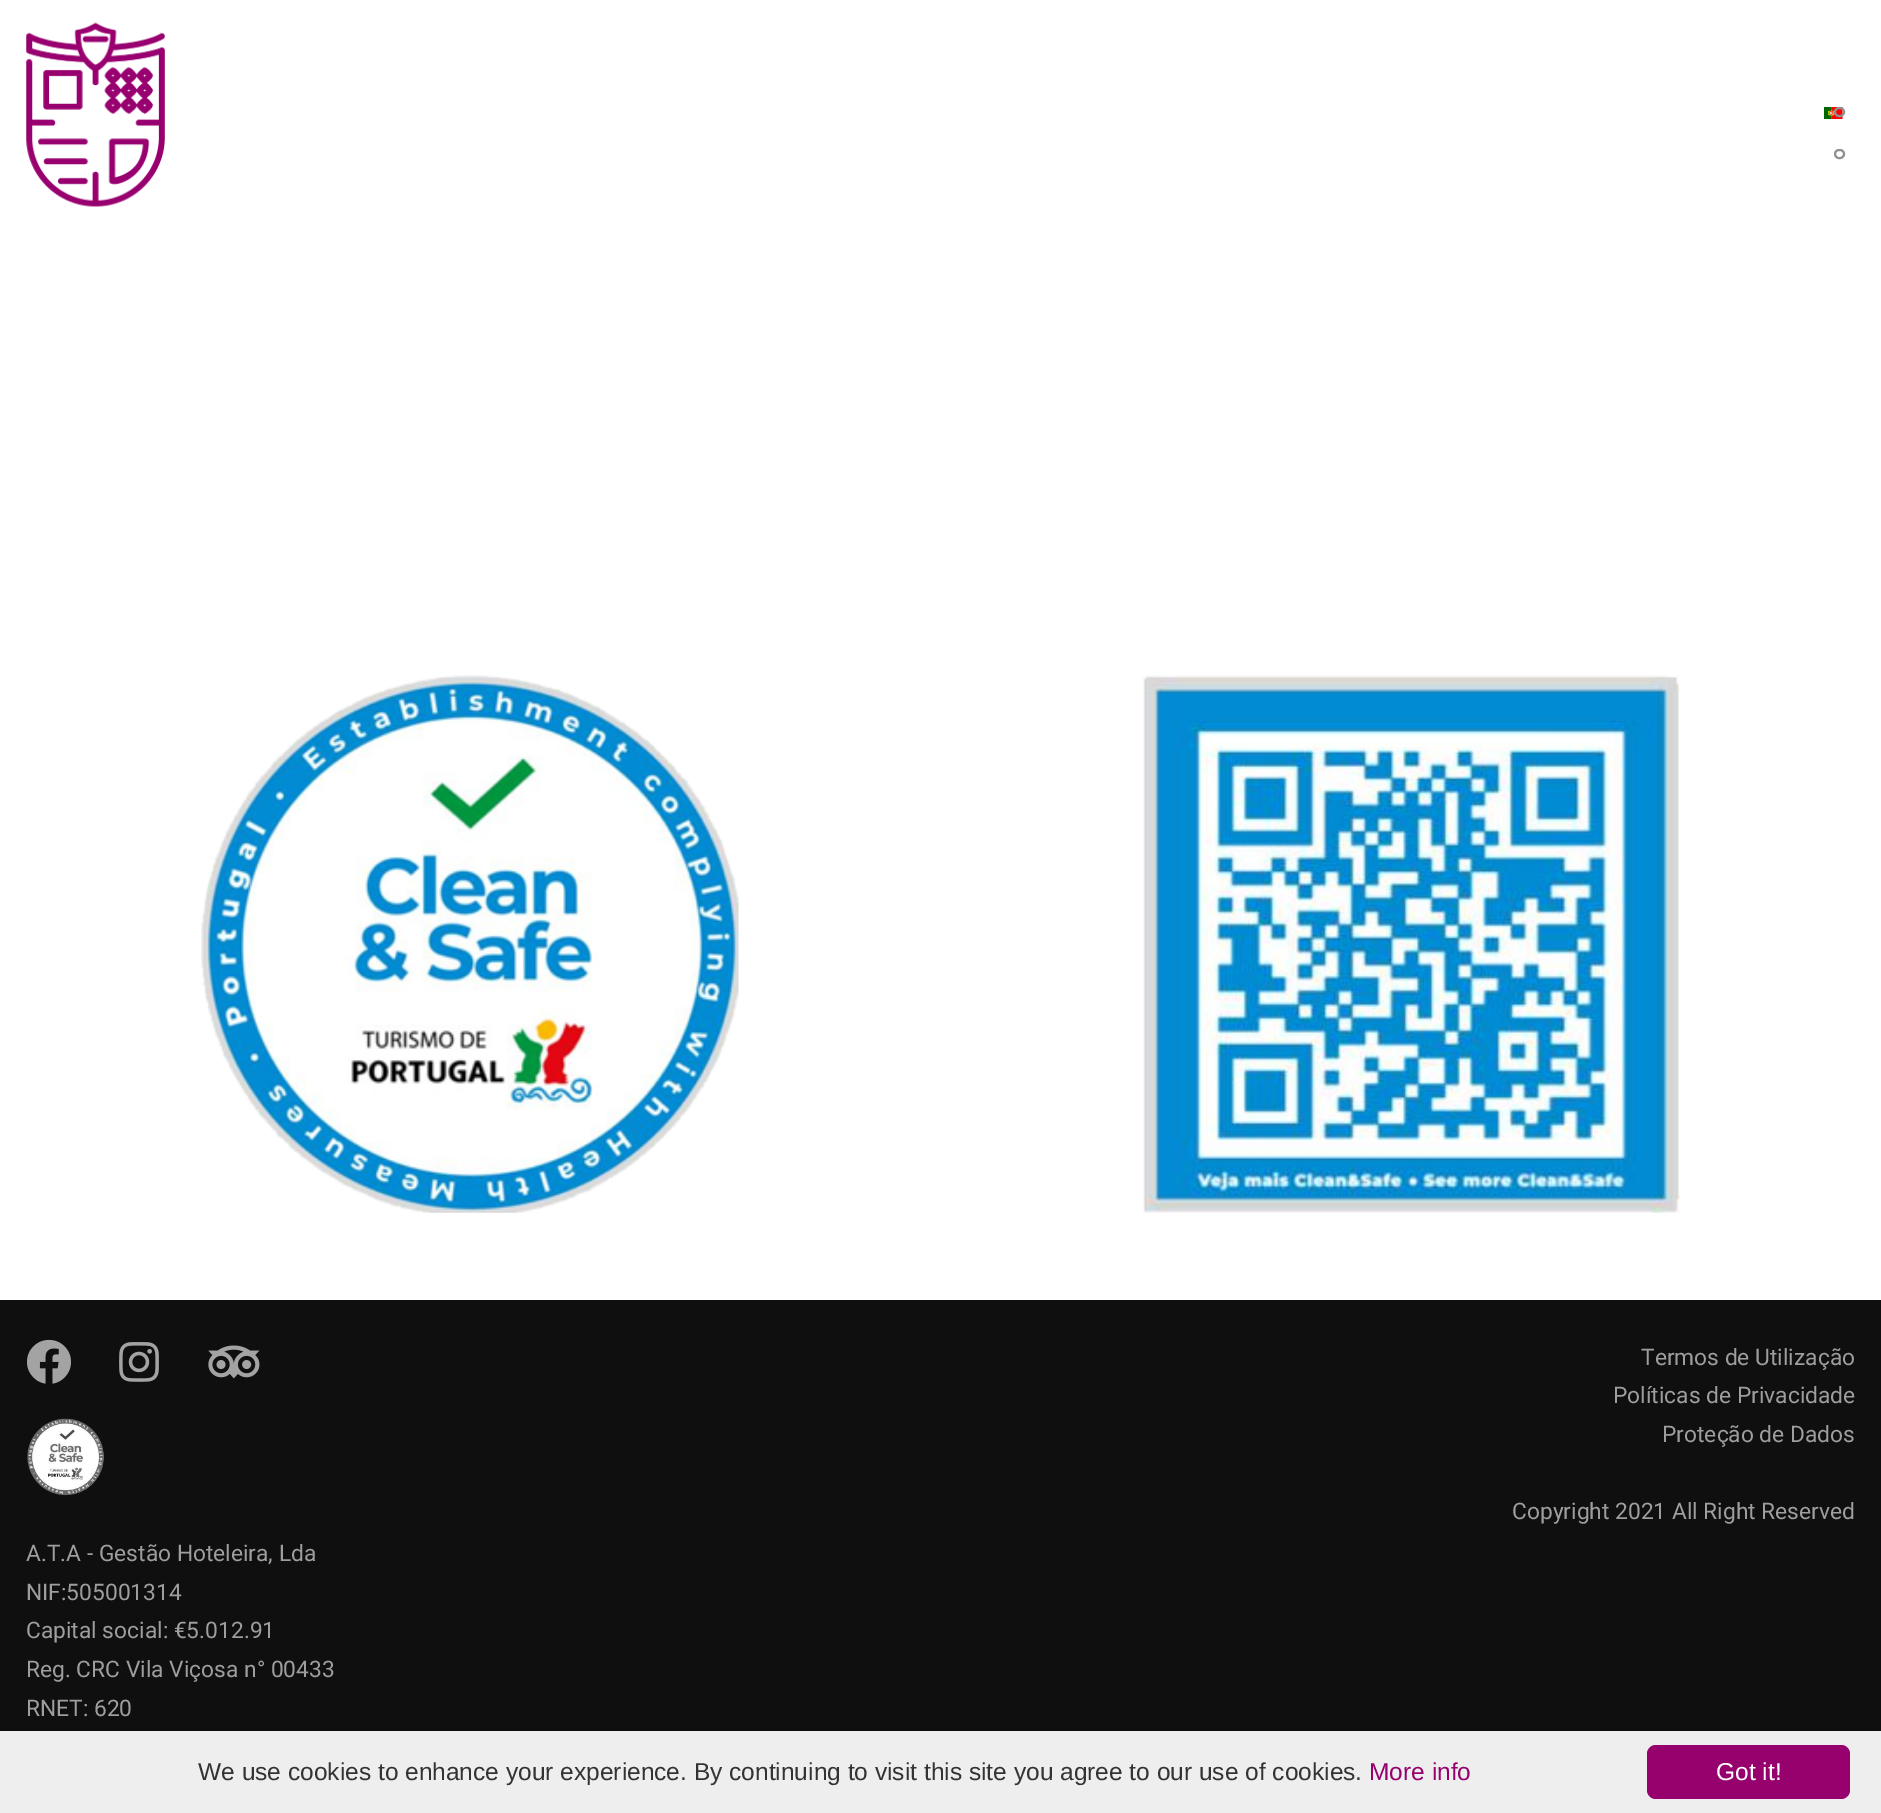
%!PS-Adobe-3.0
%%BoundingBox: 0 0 1881 1813
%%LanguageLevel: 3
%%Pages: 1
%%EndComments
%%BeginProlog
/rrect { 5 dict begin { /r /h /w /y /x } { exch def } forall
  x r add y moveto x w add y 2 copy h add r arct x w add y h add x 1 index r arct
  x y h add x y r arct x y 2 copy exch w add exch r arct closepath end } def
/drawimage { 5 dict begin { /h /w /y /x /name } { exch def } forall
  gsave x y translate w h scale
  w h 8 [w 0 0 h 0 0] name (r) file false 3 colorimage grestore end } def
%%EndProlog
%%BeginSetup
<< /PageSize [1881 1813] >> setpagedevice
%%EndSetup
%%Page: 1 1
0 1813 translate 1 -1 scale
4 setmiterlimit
1 setgray
0 0 1881 1813 rectfill
(images/1.raw) 26 22 139 185 drawimage
(images/2.raw) 1824 107 19 12 drawimage
0.565 setgray
2 setlinewidth
1835 108 9 8 4 rrect stroke
1835 150 9 8 4 rrect stroke
(images/3.raw) 201 675 538 538 drawimage
(images/4.raw) 1143 675 537 538 drawimage
0.059 setgray
0 1300 1881 431 rectfill
(images/5.raw) 27 1339 44 45 drawimage
(images/6.raw) 119 1342 40 40 drawimage
(images/7.raw) 208 1345 52 34 drawimage
(images/8.raw) 27 1418 77 78 drawimage
0.933 setgray
0 1731 1881 82 rectfill
0.588 0.004 0.431 setrgbcolor
1647 1745 203 54 9 rrect fill
/Roboto-Regular [22.75 0 0 -22.75 0 0] selectfont
0.62 setgray
1641 1365 moveto (Termos de Utilização) show
1613 1403 moveto (Políticas de Privacidade) show
1662 1442 moveto (Proteção de Dados) show
1512 1519 moveto (Copyright 2021 All Right Reserved) show
26 1561 moveto (A.T.A - Gestão Hoteleira, Lda) show
26 1600 moveto (NIF:505001314) show
26 1638 moveto (Capital social: €5.012.91) show
26 1677 moveto (Reg. CRC Vila Viçosa n° 00433) show
26 1716 moveto (RNET: 620) show
/LiberationSans-Regular [24.5 0 0 -24.5 0 0] selectfont
0.2 setgray
198 1780 moveto (We use cookies to enhance your experience. By continuing to visit this site you agree to our use of cookies.) show
0.588 0.004 0.431 setrgbcolor
1369 1780 moveto (More info) show
1 setgray
1716 1780 moveto (Got it!) show
showpage
%%EOF
